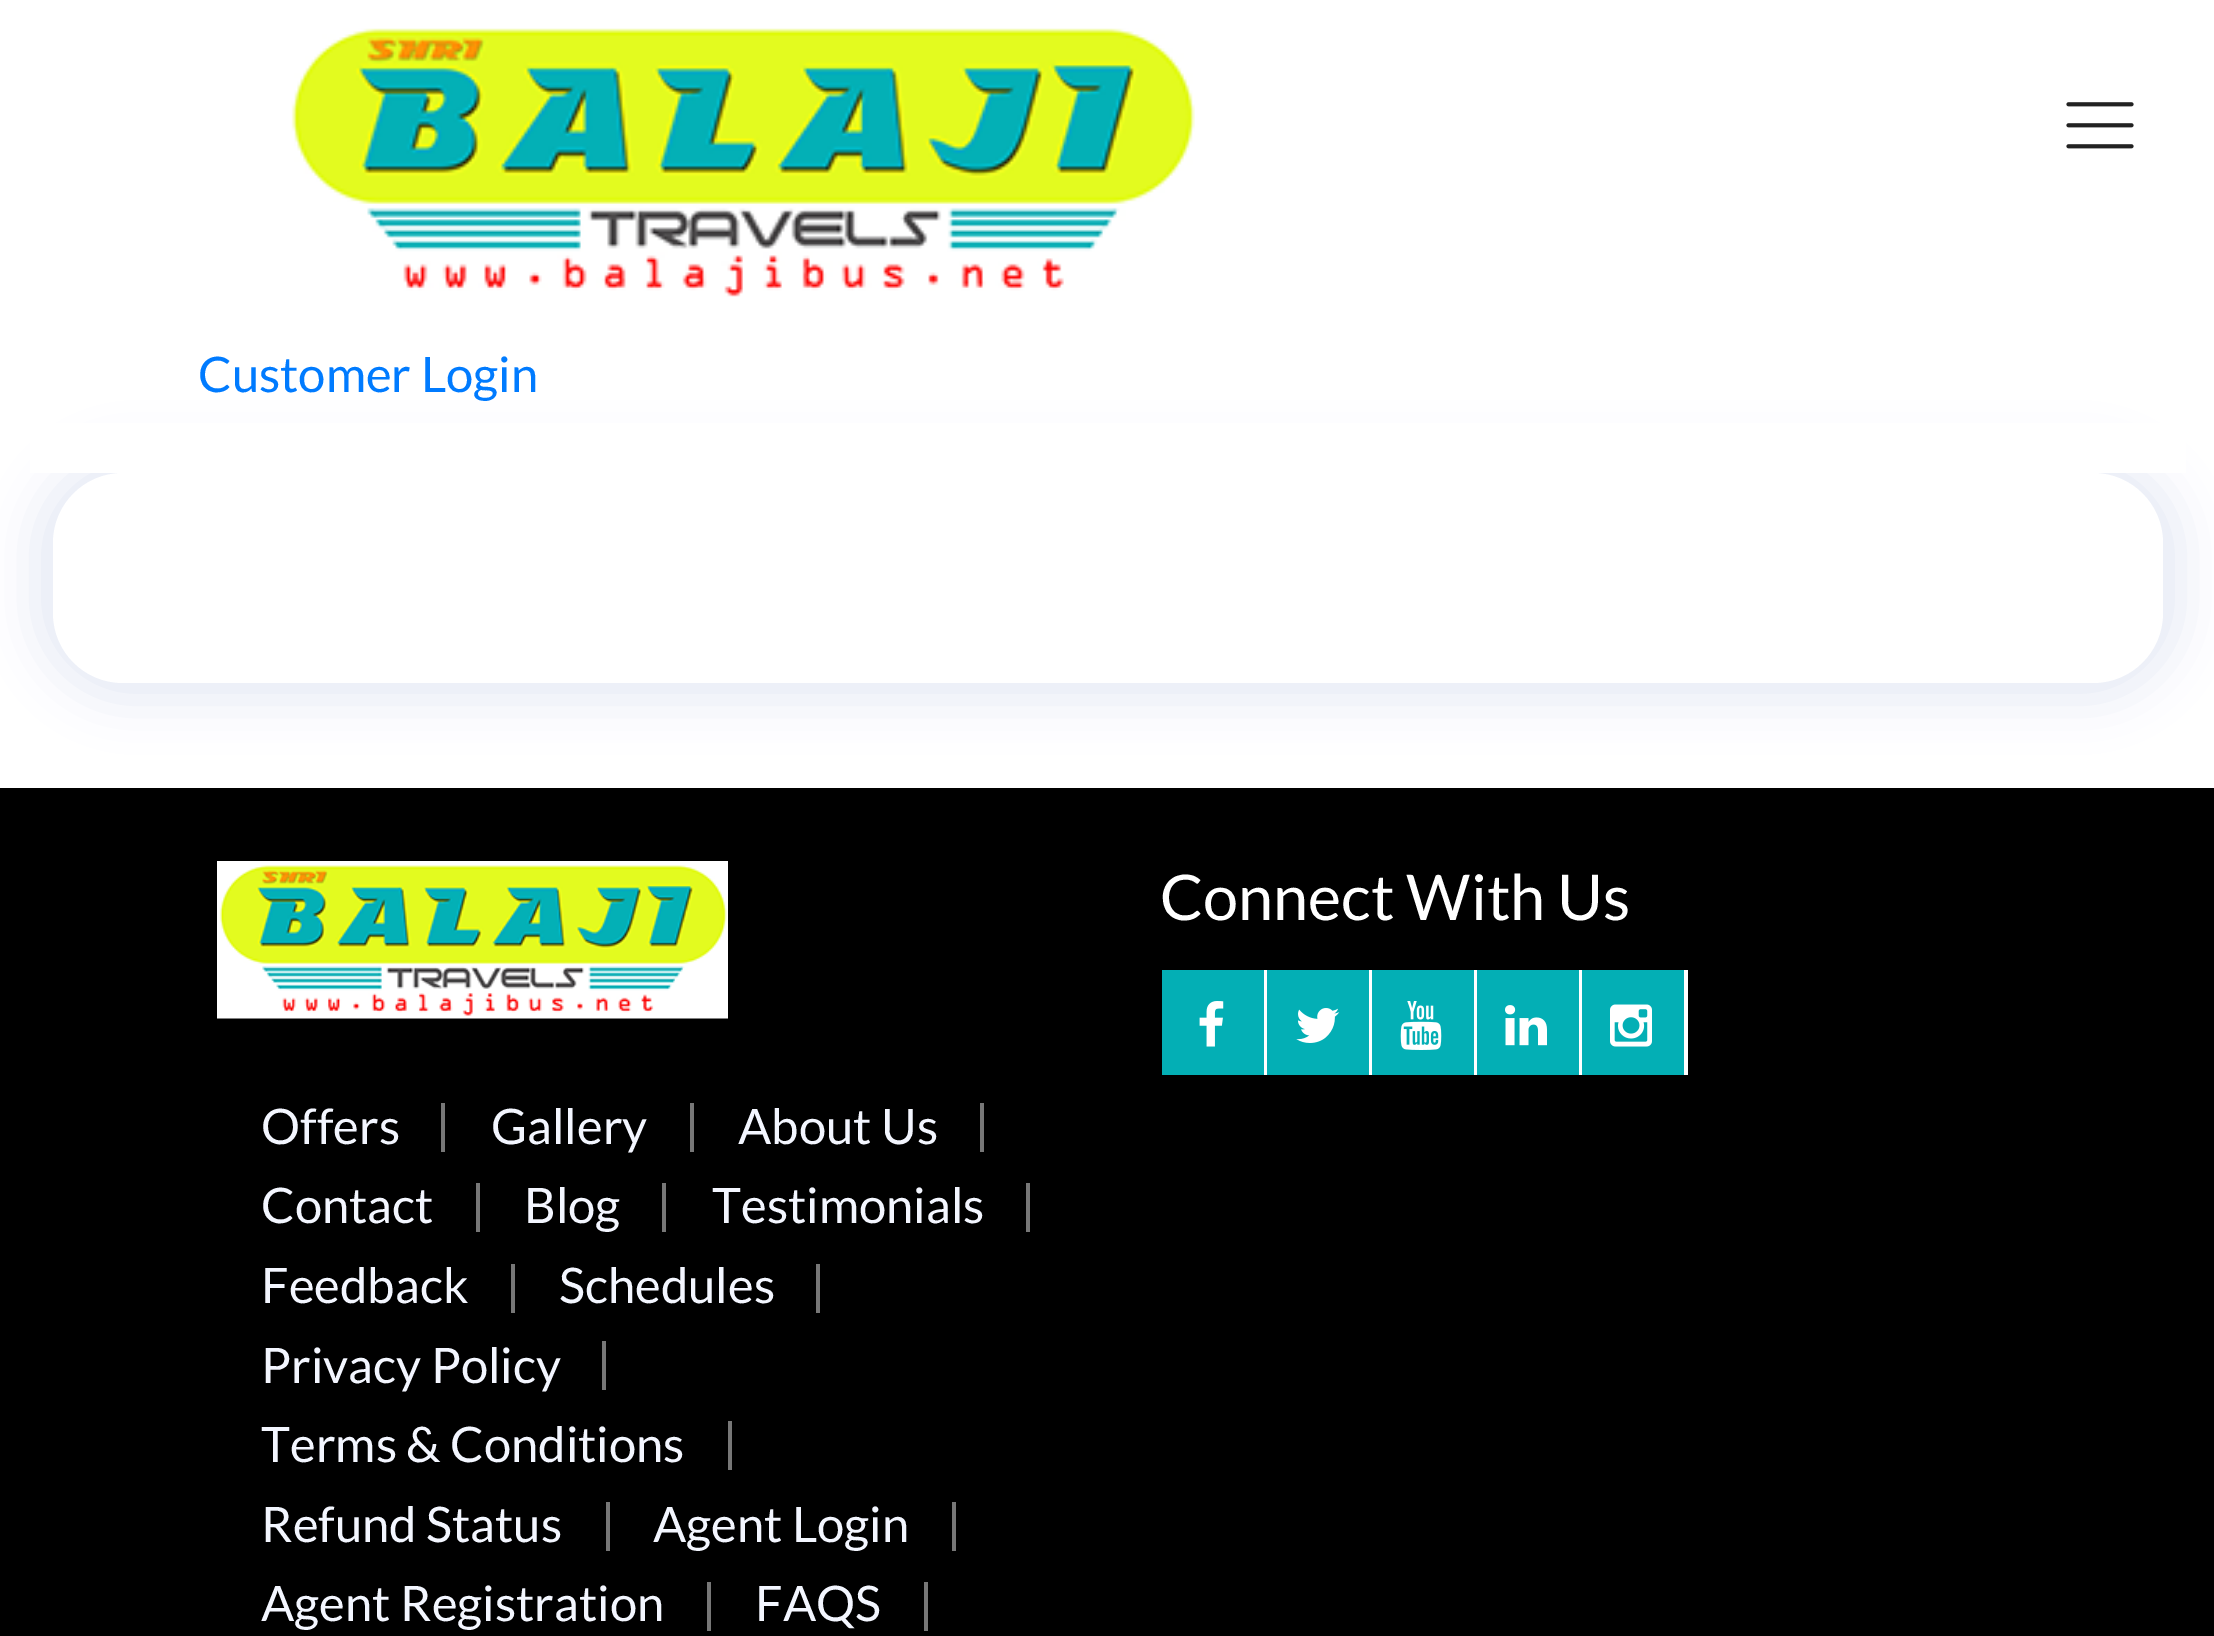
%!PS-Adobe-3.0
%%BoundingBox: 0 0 2214 1636
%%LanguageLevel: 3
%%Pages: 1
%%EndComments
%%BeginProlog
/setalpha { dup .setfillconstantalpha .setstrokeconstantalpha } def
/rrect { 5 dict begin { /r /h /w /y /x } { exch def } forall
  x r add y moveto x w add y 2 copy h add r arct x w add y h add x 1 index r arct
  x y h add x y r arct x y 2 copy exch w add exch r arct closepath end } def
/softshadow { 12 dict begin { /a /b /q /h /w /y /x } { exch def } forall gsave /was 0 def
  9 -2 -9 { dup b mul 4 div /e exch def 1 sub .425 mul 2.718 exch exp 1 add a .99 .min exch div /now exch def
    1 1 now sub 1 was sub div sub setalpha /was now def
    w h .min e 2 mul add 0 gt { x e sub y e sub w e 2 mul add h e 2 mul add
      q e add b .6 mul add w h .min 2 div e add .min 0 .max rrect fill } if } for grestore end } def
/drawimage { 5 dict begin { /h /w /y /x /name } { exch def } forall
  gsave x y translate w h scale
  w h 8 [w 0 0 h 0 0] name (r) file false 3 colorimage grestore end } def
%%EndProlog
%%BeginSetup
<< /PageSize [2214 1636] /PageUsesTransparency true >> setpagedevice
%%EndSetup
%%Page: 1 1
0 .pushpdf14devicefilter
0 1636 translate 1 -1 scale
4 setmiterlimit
1 setgray
0 0 2214 1636 rectfill
(images/1.raw) 2066 102 68 47 drawimage
0.894 0.914 0.957 setrgbcolor
35 455 2146 245 88 24.5 1 softshadow
1 setgray
30 423 2156 50 rectfill
(images/2.raw) 291 28 904 269 drawimage
53 473 2110 210 70 rrect fill
0 setgray
0 788 2214 848 rectfill
0.012 0.686 0.71 setrgbcolor
1162 970 102 105 rectfill
1 setgray
1264 970 3 105 rectfill
(images/3.raw) 1199 1001 25 46 drawimage
0.012 0.686 0.71 setrgbcolor
1267 970 102 105 rectfill
1 setgray
1369 970 3 105 rectfill
(images/4.raw) 1296 1008 44 35 drawimage
0.012 0.686 0.71 setrgbcolor
1372 970 102 105 rectfill
1 setgray
1474 970 3 105 rectfill
(images/5.raw) 1400 1001 42 49 drawimage
0.012 0.686 0.71 setrgbcolor
1477 970 102 105 rectfill
1 setgray
1579 970 3 105 rectfill
(images/6.raw) 1505 1005 42 41 drawimage
0.012 0.686 0.71 setrgbcolor
1582 970 102 105 rectfill
1 setgray
1684 970 4 105 rectfill
(images/7.raw) 1610 1004 42 43 drawimage
(images/8.raw) 217 861 511 158 drawimage
0.467 setgray
441 1103 4 49 rectfill
690 1103 4 49 rectfill
980 1103 4 49 rectfill
476 1183 4 49 rectfill
662 1183 4 49 rectfill
1026 1183 4 49 rectfill
511 1264 4 49 rectfill
816 1264 4 49 rectfill
602 1341 4 49 rectfill
728 1421 4 49 rectfill
606 1502 4 49 rectfill
952 1502 4 49 rectfill
707 1582 4 49 rectfill
924 1582 4 49 rectfill
/Lato-Regular [49 0 0 -49 0 0] selectfont
0 0.482 1 setrgbcolor
198 392 moveto (Customer Login) show
/Lato-Regular [63 0 0 -63 0 0] selectfont
1 setgray
1160 920 moveto (Connect With Us) show
/Lato-Regular [49 0 0 -49 0 0] selectfont
0.953 0.965 1 setrgbcolor
261 1144 moveto (Offers) show
491 1144 moveto (Gallery) show
738 1144 moveto (About Us) show
261 1223 moveto (Contact) show
524 1223 moveto (Blog) show
712 1223 moveto (Testimonials) show
261 1303 moveto (Feedback) show
559 1303 moveto (Schedules) show
261 1383 moveto (Privacy Policy) show
261 1462 moveto (Terms & Conditions) show
261 1542 moveto (Refund Status) show
653 1542 moveto (Agent Login) show
261 1621 moveto (Agent Registration) show
755 1621 moveto (FAQS) show
.poppdf14devicefilter showpage
%%EOF
